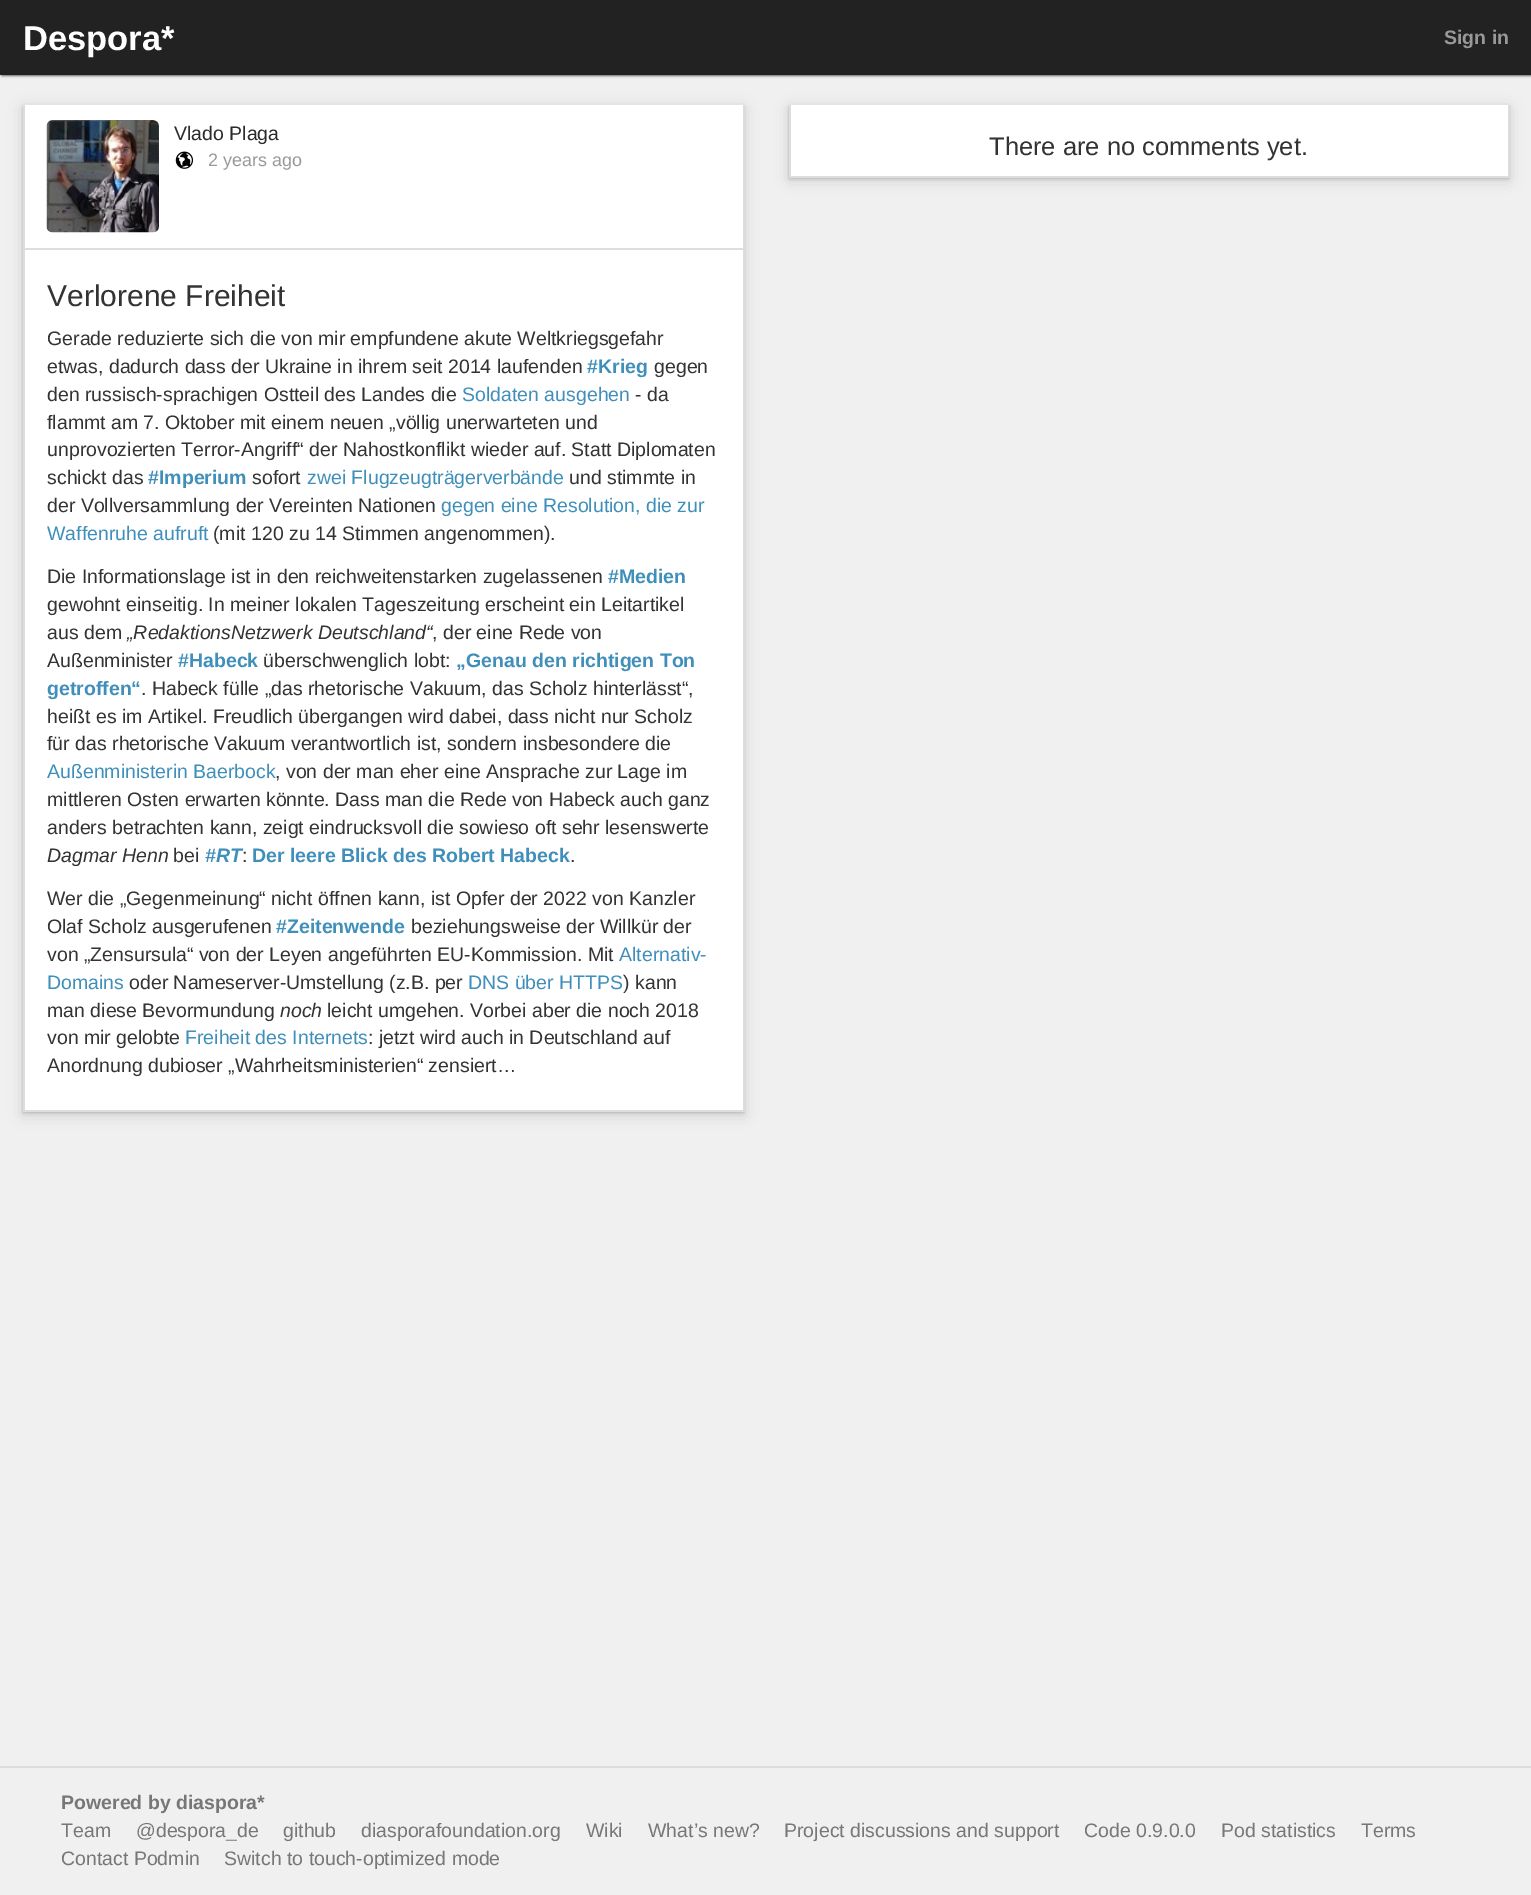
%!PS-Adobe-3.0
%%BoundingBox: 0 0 1531 1895
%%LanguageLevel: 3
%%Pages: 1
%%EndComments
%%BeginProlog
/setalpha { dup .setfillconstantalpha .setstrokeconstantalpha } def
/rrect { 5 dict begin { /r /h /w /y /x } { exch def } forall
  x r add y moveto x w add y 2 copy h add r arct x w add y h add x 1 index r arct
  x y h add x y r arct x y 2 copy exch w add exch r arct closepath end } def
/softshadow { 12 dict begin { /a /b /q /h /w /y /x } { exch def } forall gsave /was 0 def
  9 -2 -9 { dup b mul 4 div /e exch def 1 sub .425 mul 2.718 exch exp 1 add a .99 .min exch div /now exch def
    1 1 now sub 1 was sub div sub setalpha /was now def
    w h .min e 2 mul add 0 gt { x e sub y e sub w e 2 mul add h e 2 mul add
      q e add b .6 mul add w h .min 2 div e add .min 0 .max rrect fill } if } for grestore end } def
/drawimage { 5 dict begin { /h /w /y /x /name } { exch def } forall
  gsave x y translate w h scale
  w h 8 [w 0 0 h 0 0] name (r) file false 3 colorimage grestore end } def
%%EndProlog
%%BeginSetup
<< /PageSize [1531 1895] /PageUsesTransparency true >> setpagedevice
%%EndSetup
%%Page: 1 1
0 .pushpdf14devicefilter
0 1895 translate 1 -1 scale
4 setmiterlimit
0.941 setgray
0 0 1531 1895 rectfill
0 setgray
2 0 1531 75 0 1.5 1 softshadow
0.133 setgray
0 0 1531 75 rectfill
0 setgray
23 108 721 1007 0 7.5 0.12 softshadow
23 107 721 1006 0 1.5 0.16 softshadow
1 setgray
25 105 718 1005 rectfill
0.867 setgray
743 105 2 1007 rectfill
23 1110 721 2 rectfill
23 105 2 1007 rectfill
24 248 719 2 rectfill
(images/1.raw) 46 120 113 113 drawimage
(images/2.raw) 175 151 19 18 drawimage
0 setgray
789 108 720 72 0 7.5 0.12 softshadow
789 107 720 72 0 1.5 0.16 softshadow
1 setgray
791 105 717 71 rectfill
0.867 setgray
1508 105 2 72 rectfill
789 176 720 2 rectfill
789 105 2 72 rectfill
0 1766 1531 2 rectfill
/LiberationSans-Bold [34.5 0 0 -34.5 0 0] selectfont
1 setgray
23 50 moveto (Despora*) show
/LiberationSans-Bold [19.5 0 0 -19.5 0 0] selectfont
0.6 setgray
1444 44 moveto (Sign in) show
/LiberationSans-Regular [19.5 0 0 -19.5 0 0] selectfont
0.169 setgray
174 140 moveto (Vlado Plaga) show
/LiberationSans-Regular [18 0 0 -18 0 0] selectfont
0.6 setgray
208 166 moveto (2 years ago) show
/LiberationSans-Regular [30 0 0 -30 0 0] selectfont
0.2 setgray
47 306 moveto (Verlorene Freiheit) show
/LiberationSans-Regular [19.5 0 0 -19.5 0 0] selectfont
47 345 moveto (Gerade reduzierte sich die von mir empfundene akute Weltkriegsgefahr) show
47 373 moveto (etwas, dadurch dass der Ukraine in ihrem seit 2014 laufenden) show
/LiberationSans-Bold [19.5 0 0 -19.5 0 0] selectfont
0.247 0.561 0.729 setrgbcolor
587 373 moveto (#Krieg) show
/LiberationSans-Regular [19.5 0 0 -19.5 0 0] selectfont
0.2 setgray
654 373 moveto (gegen) show
47 401 moveto (den russisch-sprachigen Ostteil des Landes die) show
0.247 0.561 0.729 setrgbcolor
462 401 moveto (Soldaten ausgehen) show
0.2 setgray
635 401 moveto (- da) show
47 429 moveto (flammt am 7. Oktober mit einem neuen „völlig unerwarteten und) show
47 456 moveto (unprovozierten Terror-Angriff“ der Nahostkonflikt wieder auf. Statt Diplomaten) show
47 484 moveto (schickt das) show
/LiberationSans-Bold [19.5 0 0 -19.5 0 0] selectfont
0.247 0.561 0.729 setrgbcolor
148 484 moveto (#Imperium) show
/LiberationSans-Regular [19.5 0 0 -19.5 0 0] selectfont
0.2 setgray
252 484 moveto (sofort) show
0.247 0.561 0.729 setrgbcolor
307 484 moveto (zwei Flugzeugträgerverbände) show
0.2 setgray
569 484 moveto (und stimmte in) show
47 512 moveto (der Vollversammlung der Vereinten Nationen) show
0.247 0.561 0.729 setrgbcolor
441 512 moveto (gegen eine Resolution, die zur) show
47 540 moveto (Waffenruhe aufruft) show
0.2 setgray
213 540 moveto (\(mit 120 zu 14 Stimmen angenommen\).) show
47 583 moveto (Die Informationslage ist in den reichweitenstarken zugelassenen) show
/LiberationSans-Bold [19.5 0 0 -19.5 0 0] selectfont
0.247 0.561 0.729 setrgbcolor
608 583 moveto (#Medien) show
/LiberationSans-Regular [19.5 0 0 -19.5 0 0] selectfont
0.2 setgray
47 611 moveto (gewohnt einseitig. In meiner lokalen Tageszeitung erscheint ein Leitartikel) show
47 639 moveto (aus dem) show
/LiberationSans-Italic [19.5 0 0 -19.5 0 0] selectfont
127 639 moveto („RedaktionsNetzwerk Deutschland“) show
/LiberationSans-Regular [19.5 0 0 -19.5 0 0] selectfont
432 639 moveto (, der eine Rede von) show
47 667 moveto (Außenminister) show
/LiberationSans-Bold [19.5 0 0 -19.5 0 0] selectfont
0.247 0.561 0.729 setrgbcolor
178 667 moveto (#Habeck) show
/LiberationSans-Regular [19.5 0 0 -19.5 0 0] selectfont
0.2 setgray
263 667 moveto (überschwenglich lobt:) show
/LiberationSans-Bold [19.5 0 0 -19.5 0 0] selectfont
0.247 0.561 0.729 setrgbcolor
456 667 moveto („Genau den richtigen Ton) show
47 695 moveto (getroffen“) show
/LiberationSans-Regular [19.5 0 0 -19.5 0 0] selectfont
0.2 setgray
141 695 moveto (. Habeck fülle „das rhetorische Vakuum, das Scholz hinterlässt“,) show
47 723 moveto (heißt es im Artikel. Freudlich übergangen wird dabei, dass nicht nur Scholz) show
47 750 moveto (für das rhetorische Vakuum verantwortlich ist, sondern insbesondere die) show
0.247 0.561 0.729 setrgbcolor
47 778 moveto (Außenministerin Baerbock) show
0.2 setgray
275 778 moveto (, von der man eher eine Ansprache zur Lage im) show
47 806 moveto (mittleren Osten erwarten könnte. Dass man die Rede von Habeck auch ganz) show
47 834 moveto (anders betrachten kann, zeigt eindrucksvoll die sowieso oft sehr lesenswerte) show
/LiberationSans-Italic [19.5 0 0 -19.5 0 0] selectfont
47 862 moveto (Dagmar Henn) show
/LiberationSans-Regular [19.5 0 0 -19.5 0 0] selectfont
173 862 moveto (bei) show
/LiberationSans-BoldItalic [19.5 0 0 -19.5 0 0] selectfont
0.247 0.561 0.729 setrgbcolor
205 862 moveto (#RT) show
/LiberationSans-Regular [19.5 0 0 -19.5 0 0] selectfont
0.2 setgray
242 862 moveto (:) show
/LiberationSans-Bold [19.5 0 0 -19.5 0 0] selectfont
0.247 0.561 0.729 setrgbcolor
252 862 moveto (Der leere Blick des Robert Habeck) show
/LiberationSans-Regular [19.5 0 0 -19.5 0 0] selectfont
0.2 setgray
570 862 moveto (.) show
47 905 moveto (Wer die „Gegenmeinung“ nicht öffnen kann, ist Opfer der 2022 von Kanzler) show
47 933 moveto (Olaf Scholz ausgerufenen) show
/LiberationSans-Bold [19.5 0 0 -19.5 0 0] selectfont
0.247 0.561 0.729 setrgbcolor
276 933 moveto (#Zeitenwende) show
/LiberationSans-Regular [19.5 0 0 -19.5 0 0] selectfont
0.2 setgray
411 933 moveto (beziehungsweise der Willkür der) show
47 961 moveto (von „Zensursula“ von der Leyen angeführten EU-Kommission. Mit) show
0.247 0.561 0.729 setrgbcolor
619 961 moveto (Alternativ-) show
47 989 moveto (Domains) show
0.2 setgray
129 989 moveto (oder Nameserver-Umstellung \(z.B. per) show
0.247 0.561 0.729 setrgbcolor
468 989 moveto (DNS über HTTPS) show
0.2 setgray
623 989 moveto (\) kann) show
47 1017 moveto (man diese Bevormundung) show
/LiberationSans-Italic [19.5 0 0 -19.5 0 0] selectfont
280 1017 moveto (noch) show
/LiberationSans-Regular [19.5 0 0 -19.5 0 0] selectfont
327 1017 moveto (leicht umgehen. Vorbei aber die noch 2018) show
47 1044 moveto (von mir gelobte) show
0.247 0.561 0.729 setrgbcolor
185 1044 moveto (Freiheit des Internets) show
0.2 setgray
368 1044 moveto (: jetzt wird auch in Deutschland auf) show
47 1072 moveto (Anordnung dubioser „Wahrheitsministerien“ zensiert…) show
/LiberationSans-Regular [25.5 0 0 -25.5 0 0] selectfont
989 155 moveto (There are no comments yet.) show
/LiberationSans-Bold [19.5 0 0 -19.5 0 0] selectfont
0.467 setgray
61 1809 moveto (Powered by diaspora*) show
/LiberationSans-Regular [19.5 0 0 -19.5 0 0] selectfont
61 1837 moveto (Team) show
136 1837 moveto (@despora_de) show
283 1837 moveto (github) show
361 1837 moveto (diasporafoundation.org) show
586 1837 moveto (Wiki) show
648 1837 moveto (What’s new?) show
784 1837 moveto (Project discussions and support) show
1084 1837 moveto (Code 0.9.0.0) show
1221 1837 moveto (Pod statistics) show
1361 1837 moveto (Terms) show
61 1865 moveto (Contact Podmin) show
224 1865 moveto (Switch to touch-optimized mode) show
.poppdf14devicefilter showpage
%%EOF
